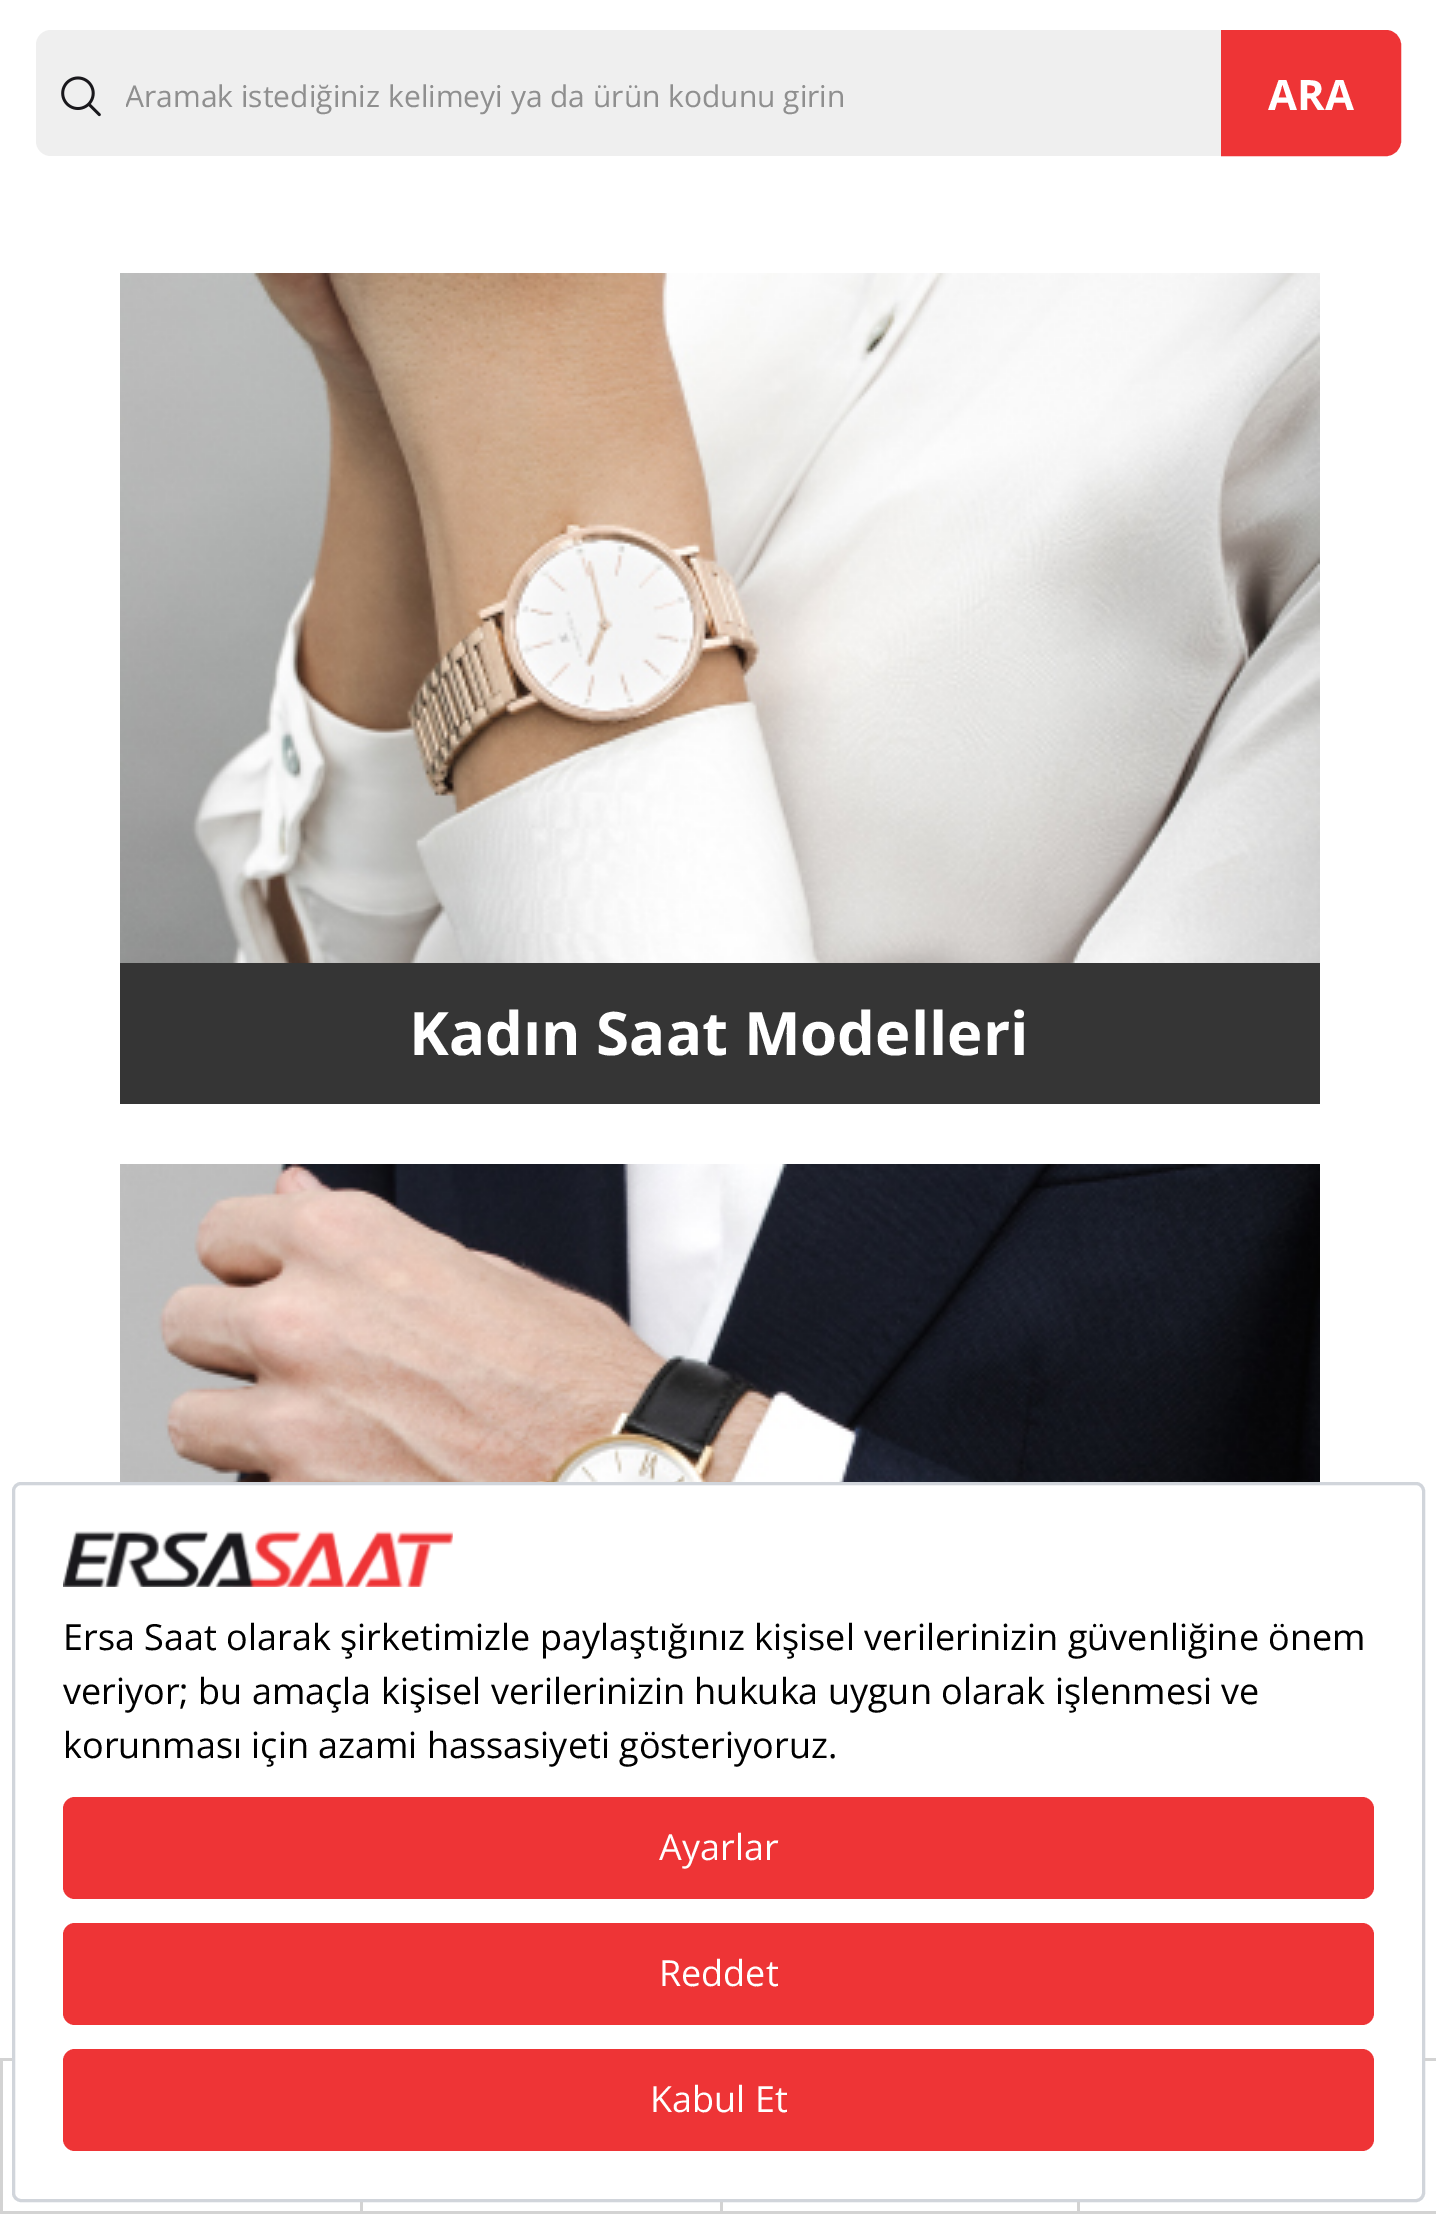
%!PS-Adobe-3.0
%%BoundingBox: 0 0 1436 2214
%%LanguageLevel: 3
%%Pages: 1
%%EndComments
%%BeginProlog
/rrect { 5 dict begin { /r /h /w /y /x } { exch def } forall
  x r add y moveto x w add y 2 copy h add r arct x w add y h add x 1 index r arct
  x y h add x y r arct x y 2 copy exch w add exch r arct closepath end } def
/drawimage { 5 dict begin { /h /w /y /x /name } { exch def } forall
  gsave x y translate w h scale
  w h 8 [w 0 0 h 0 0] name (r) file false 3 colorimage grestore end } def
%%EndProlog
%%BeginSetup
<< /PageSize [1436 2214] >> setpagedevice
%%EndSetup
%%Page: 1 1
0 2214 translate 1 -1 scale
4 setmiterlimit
1 setgray
0 0 1436 2214 rectfill
0.937 setgray
36 30 1365 126 15 rrect fill
(images/1.raw) 61 76 40 41 drawimage
0.933 0.204 0.212 setrgbcolor
newpath 1224 33 moveto 1386 33 lineto 1392.5 33 1398 38.5 1398 45 curveto 1398 141 lineto 1398 147.5 1392.5 153 1386 153 curveto 1224 153 lineto closepath gsave fill grestore
6 setlinewidth
stroke
0.208 setgray
120 963 1200 141 rectfill
(images/2.raw) 120 273 1200 690 drawimage
(images/3.raw) 120 1164 1200 318 drawimage
0.82 0.835 0.859 setrgbcolor
3 setlinewidth
13.5 1483.5 1410 717 7.5 rrect stroke
(images/4.raw) 63 1531 390 56 drawimage
0.933 0.204 0.212 setrgbcolor
63 1797 1311 102 12 rrect fill
63 1923 1311 102 12 rrect fill
63 2049 1311 102 12 rrect fill
0.827 setgray
0 2058 12 3 rectfill
0 2211 1436 3 rectfill
0 2058 3 156 rectfill
360 2202 3 12 rectfill
720 2202 3 12 rectfill
1425 2058 11 3 rectfill
1077 2202 3 12 rectfill
gsave
126 75 1092 42 rectclip
/OpenSans-Regular [30 0 0 -30 0 0] selectfont
0.561 setgray
125 107 moveto (Aramak istediğiniz kelimeyi ya da ürün kodunu girin) show
grestore
/OpenSans-Bold [42 0 0 -42 0 0] selectfont
1 setgray
1268 110 moveto (ARA) show
/OpenSans-Bold [60 0 0 -60 0 0] selectfont
409 1055 moveto (Kadın Saat Modelleri) show
/OpenSans-Regular [36 0 0 -36 0 0] selectfont
0 setgray
63 1650 moveto (Ersa Saat olarak şirketimizle paylaştığınız kişisel verilerinizin güvenliğine önem) show
63 1704 moveto (veriyor; bu amaçla kişisel verilerinizin hukuka uygun olarak işlenmesi ve) show
63 1758 moveto (korunması için azami hassasiyeti gösteriyoruz.) show
1 setgray
659 1860 moveto (Ayarlar) show
659 1986 moveto (Reddet) show
650 2112 moveto (Kabul Et) show
showpage
%%EOF
